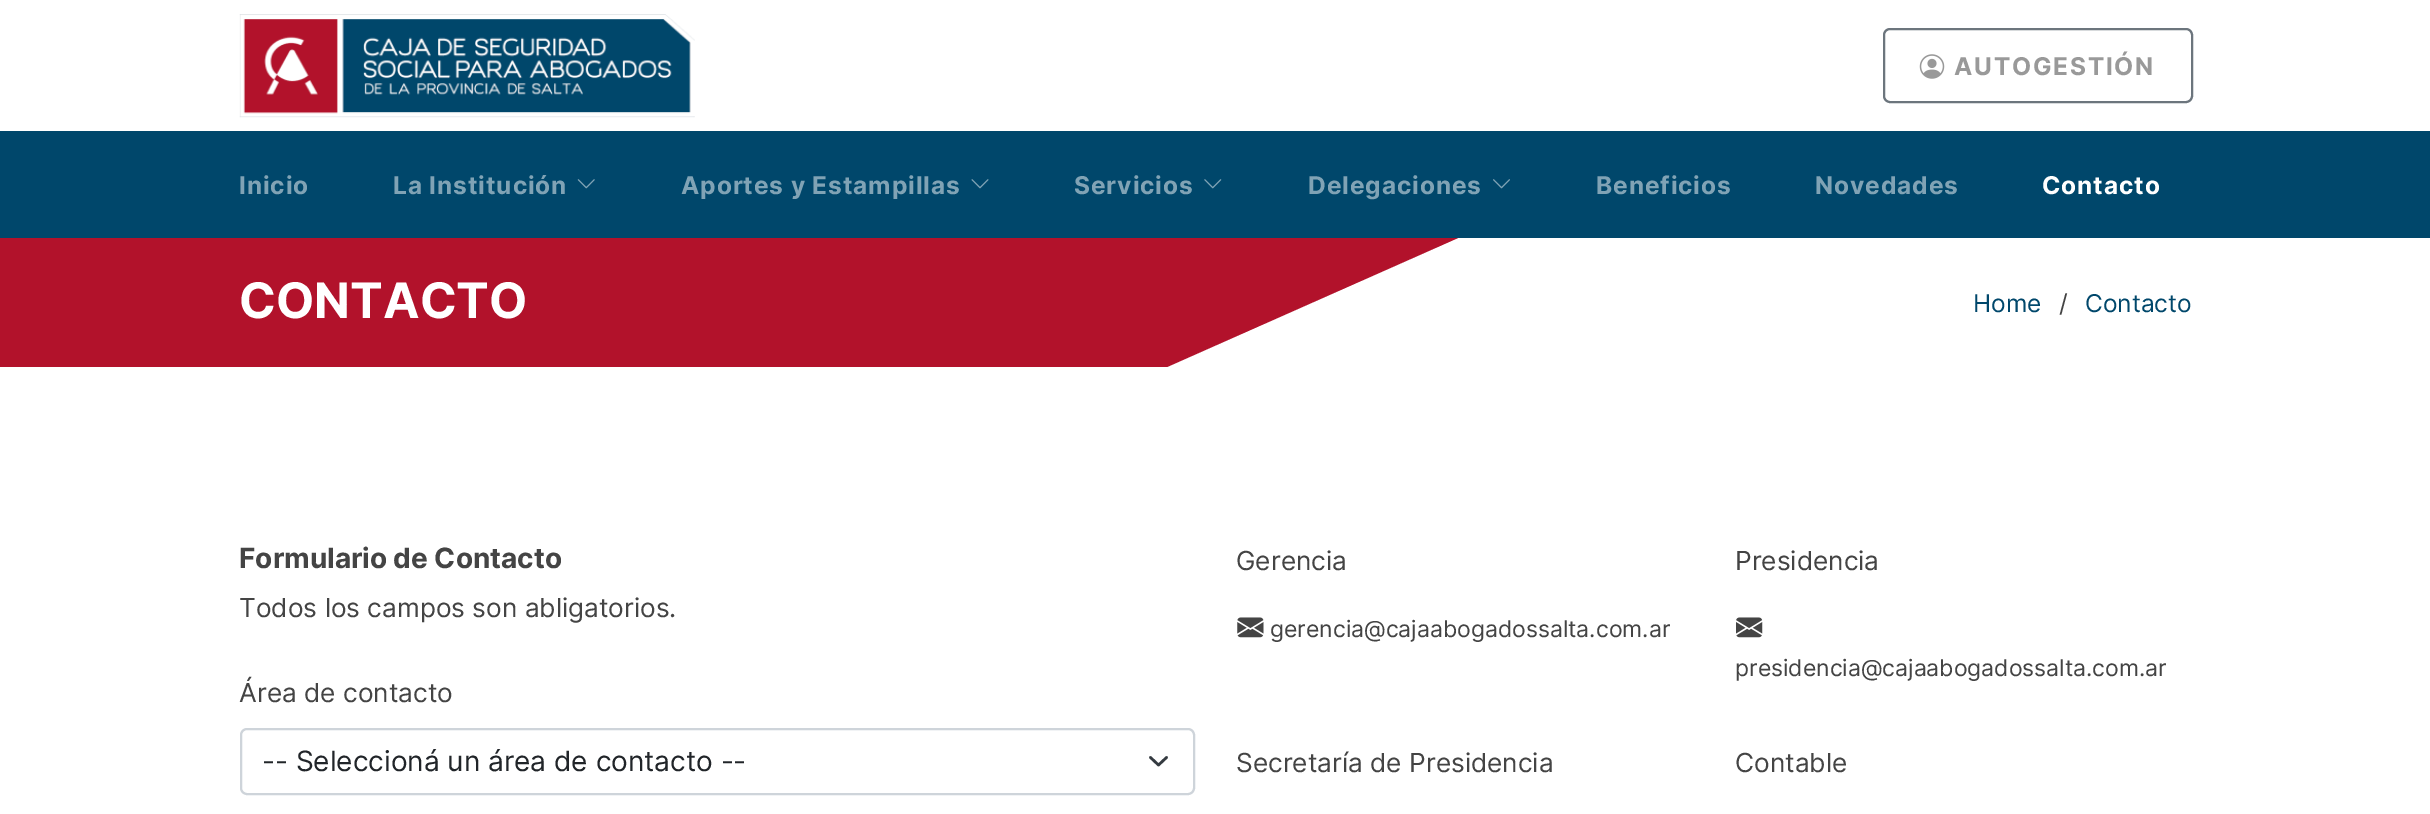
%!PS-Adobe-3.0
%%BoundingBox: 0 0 2430 814
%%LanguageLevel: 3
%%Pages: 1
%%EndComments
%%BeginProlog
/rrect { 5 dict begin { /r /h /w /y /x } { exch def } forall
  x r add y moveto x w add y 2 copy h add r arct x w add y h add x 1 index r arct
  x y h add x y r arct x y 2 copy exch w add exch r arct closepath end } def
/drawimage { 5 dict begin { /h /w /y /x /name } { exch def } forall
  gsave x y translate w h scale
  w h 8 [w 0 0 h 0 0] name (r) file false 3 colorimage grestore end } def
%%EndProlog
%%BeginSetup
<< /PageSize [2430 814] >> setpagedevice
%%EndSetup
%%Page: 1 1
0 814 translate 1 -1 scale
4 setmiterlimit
0 0.278 0.42 setrgbcolor
0 0 2430 814 rectfill
1 setgray
0 0 2430 131 rectfill
(images/1.raw) 239 14 456 104 drawimage
0.424 0.459 0.49 setrgbcolor
2 setlinewidth
1884 29 308 73 6 rrect stroke
(images/2.raw) 1919 54 26 25 drawimage
(images/3.raw) 577 179 18 10 drawimage
(images/4.raw) 971 179 18 10 drawimage
(images/5.raw) 1204 179 18 10 drawimage
(images/6.raw) 1493 179 17 10 drawimage
1 setgray
0 238 2430 576 rectfill
0.698 0.071 0.169 setrgbcolor
newpath 0 238 moveto 0 367 lineto 1167 367 lineto 1458 238 lineto closepath fill
0.204 0.227 0.251 setrgbcolor
2.6 setlinewidth
1 setlinecap
1 setlinejoin
newpath 1150.5 757.5 moveto 1158.5 765 lineto 1166.5 757.5 lineto stroke
0.808 0.831 0.855 setrgbcolor
2 setlinewidth
0 setlinecap
0 setlinejoin
241 729 953 65 6 rrect stroke
(images/7.raw) 1237 617 27 21 drawimage
(images/8.raw) 1736 617 27 21 drawimage
/Inter-Bold [24.5 0 0 -24.5 0 0] selectfont
0.6 setgray
1954 75 moveto 1.75 0 (AUTOGESTIÓN) ashow
0.502 0.639 0.71 setrgbcolor
239 194 moveto 0.9 0 (Inicio) ashow
393 194 moveto 0.9 0 (La Institución) ashow
681 194 moveto 0.9 0 (Aportes y Estampillas) ashow
1074 194 moveto 0.9 0 (Servicios) ashow
1308 194 moveto 0.9 0 (Delegaciones) ashow
1596 194 moveto 0.9 0 (Beneficios) ashow
1815 194 moveto 0.9 0 (Novedades) ashow
1 setgray
2042 194 moveto 0.9 0 (Contacto) ashow
/Inter-Bold [49 0 0 -49 0 0] selectfont
239 318 moveto (CONTACTO) show
/Inter-Regular [24.5 0 0 -24.5 0 0] selectfont
0 0.278 0.42 setrgbcolor
1973 312 moveto (Home) show
0.267 setgray
2059 312 moveto (/) show
0 0.278 0.42 setrgbcolor
2085 312 moveto (Contacto) show
/Inter-Bold [28 0 0 -28 0 0] selectfont
0.267 setgray
239 568 moveto (Formulario de Contacto) show
/Inter-Regular [26.25 0 0 -26.25 0 0] selectfont
239 617 moveto (Todos los campos son abligatorios.) show
239 702 moveto (Área de contacto) show
/Inter-Regular [28 0 0 -28 0 0] selectfont
0.129 0.145 0.161 setrgbcolor
262 771 moveto (-- Seleccioná un área de contacto --) show
/Inter-Regular [26.25 0 0 -26.25 0 0] selectfont
0.267 setgray
1236 570 moveto (Gerencia) show
/Inter-Regular [23 0 0 -23 0 0] selectfont
1270 637 moveto (gerencia@cajaabogadossalta.com.ar) show
/Inter-Regular [26.25 0 0 -26.25 0 0] selectfont
1735 570 moveto (Presidencia) show
/Inter-Regular [23 0 0 -23 0 0] selectfont
1735 676 moveto (presidencia@cajaabogadossalta.com.ar) show
/Inter-Regular [26.25 0 0 -26.25 0 0] selectfont
1236 772 moveto (Secretaría de Presidencia) show
1735 772 moveto (Contable) show
showpage
%%EOF
